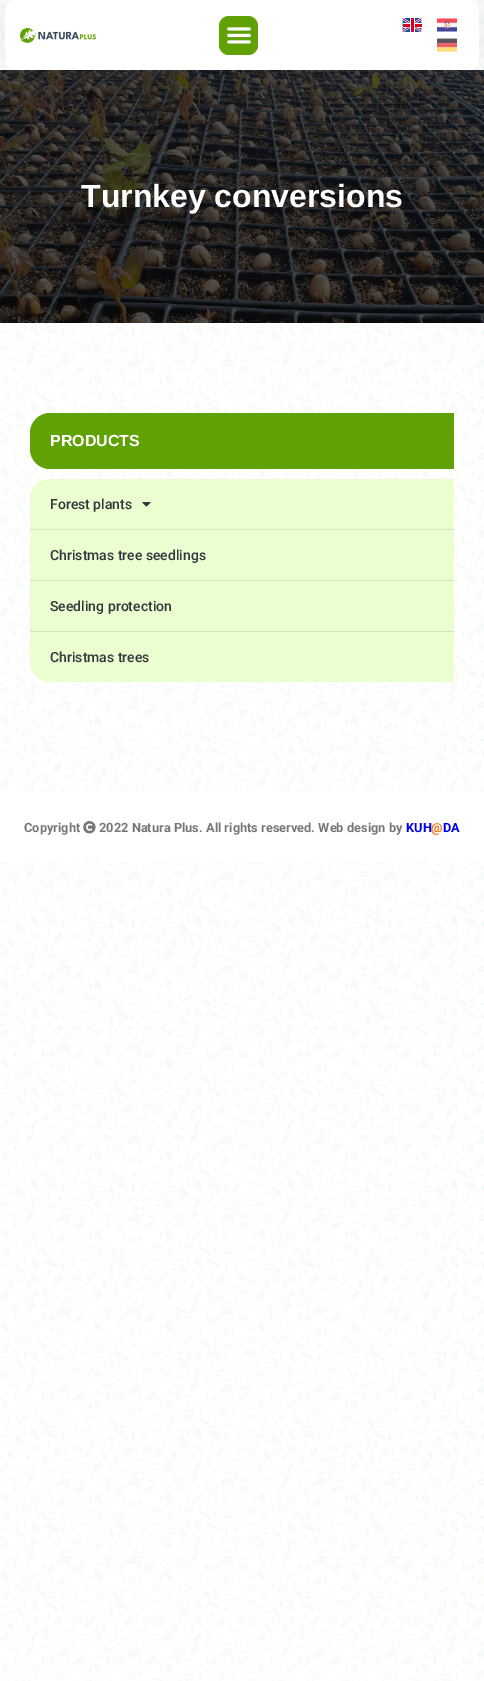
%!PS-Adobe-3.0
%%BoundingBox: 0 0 484 1681
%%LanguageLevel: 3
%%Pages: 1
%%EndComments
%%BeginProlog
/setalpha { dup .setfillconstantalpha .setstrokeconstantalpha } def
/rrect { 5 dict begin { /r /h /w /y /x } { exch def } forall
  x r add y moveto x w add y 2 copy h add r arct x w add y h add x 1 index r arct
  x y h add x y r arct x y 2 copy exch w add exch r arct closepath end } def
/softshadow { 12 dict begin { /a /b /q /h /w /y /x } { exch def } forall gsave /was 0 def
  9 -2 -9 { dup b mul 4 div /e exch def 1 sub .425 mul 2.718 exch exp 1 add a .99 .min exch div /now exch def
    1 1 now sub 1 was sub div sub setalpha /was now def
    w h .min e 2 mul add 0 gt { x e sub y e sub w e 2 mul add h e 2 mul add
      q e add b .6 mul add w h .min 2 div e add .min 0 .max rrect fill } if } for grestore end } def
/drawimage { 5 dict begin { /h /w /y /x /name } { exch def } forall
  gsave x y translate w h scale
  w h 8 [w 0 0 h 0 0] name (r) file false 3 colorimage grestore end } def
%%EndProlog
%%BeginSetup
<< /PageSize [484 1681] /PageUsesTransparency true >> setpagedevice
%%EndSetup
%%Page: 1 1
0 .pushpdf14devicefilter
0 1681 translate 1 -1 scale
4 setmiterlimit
1 setgray
0 0 484 1681 rectfill
(images/1.raw) 0 0 484 1681 drawimage
(images/7.raw) 0 70 484 253 drawimage
0 setgray
5 0 474 70 10 26 0.08 softshadow
1 setgray
5 0 474 70 10 rrect fill
(images/2.raw) 20 28 76 15 drawimage
0.376 0.631 0.012 setrgbcolor
219 16 39 39 10 rrect fill
(images/3.raw) 227 27 24 17 drawimage
(images/4.raw) 402 18 20 14 drawimage
(images/5.raw) 437 18 20 14 drawimage
(images/6.raw) 437 38 20 14 drawimage
newpath 50 413 moveto 454 413 lineto 454 469 lineto 50 469 lineto 39 469 30 460 30 449 curveto 30 433 lineto 30 422 39 413 50 413 curveto closepath fill
0.922 0.996 0.816 setrgbcolor
newpath 50 479 moveto 454 479 lineto 454 682 lineto 50 682 lineto 39 682 30 673 30 662 curveto 30 499 lineto 30 488 39 479 50 479 curveto closepath fill
0.831 0.898 0.733 setrgbcolor
30 529 424 1 rectfill
(images/8.raw) 142 502 9 5 drawimage
30 580 424 1 rectfill
30 631 424 1 rectfill
1 setgray
0 792 484 70 rectfill
(images/9.raw) 83 821 13 13 drawimage
/LiberationSans-Bold [32 0 0 -32 0 0] selectfont
81 207 moveto (Turnkey conversions) show
/LiberationSans-Bold [16 0 0 -16 0 0] selectfont
50 446 moveto (PRODUCTS) show
/Roboto-Medium [14 0 0 -14 0 0] selectfont
0.2 0.216 0.239 setrgbcolor
50 509 moveto (Forest plants) show
50 560 moveto (Christmas tree seedlings) show
50 611 moveto (Seedling protection) show
50 662 moveto (Christmas trees) show
/Roboto-Bold [12.8 0 0 -12.8 0 0] selectfont
0.467 setgray
24 832 moveto (Copyright) show
99 832 moveto (2022 Natura Plus. All rights reserved. Web design by) show
0 0 0.933 setrgbcolor
406 832 moveto (KUH) show
0.953 0.412 0 setrgbcolor
431 832 moveto (@) show
0 0 0.933 setrgbcolor
443 832 moveto (DA) show
.poppdf14devicefilter showpage
%%EOF
